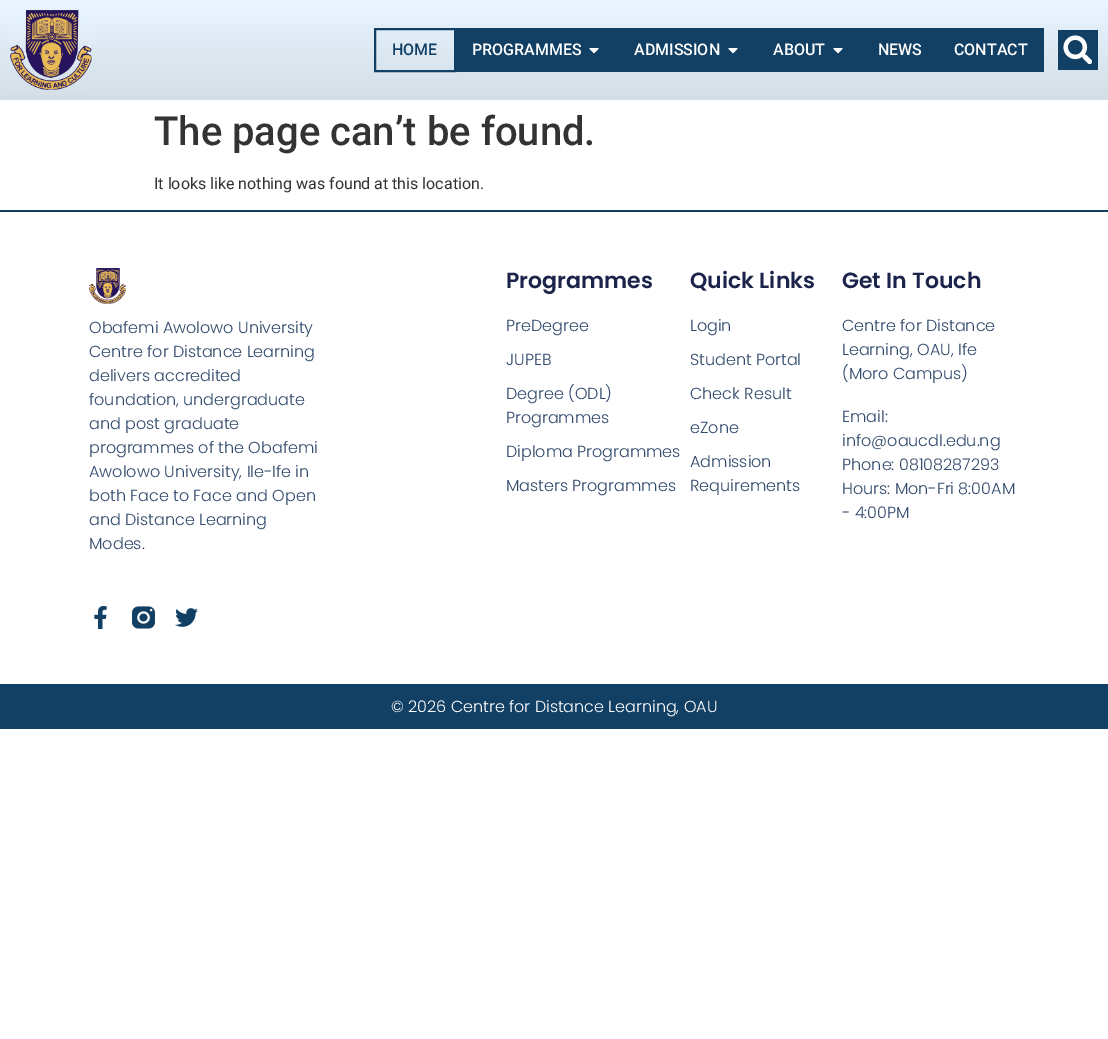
%!PS-Adobe-3.0
%%BoundingBox: 0 0 1108 1039
%%LanguageLevel: 3
%%Pages: 1
%%EndComments
%%BeginProlog
/drawimage { 5 dict begin { /h /w /y /x /name } { exch def } forall
  gsave x y translate w h scale
  w h 8 [w 0 0 h 0 0] name (r) file false 3 colorimage grestore end } def
%%EndProlog
%%BeginSetup
<< /PageSize [1108 1039] >> setpagedevice
%%EndSetup
%%Page: 1 1
0 1039 translate 1 -1 scale
4 setmiterlimit
1 setgray
0 0 1108 1039 rectfill
gsave newpath 0 0 moveto 1108 0 lineto 1108 100 lineto 0 100 lineto closepath clip newpath
<< /ShadingType 2 /ColorSpace /DeviceRGB /Coords [554 0 554 100] /Extend [true true] /Function << /FunctionType 2 /Domain [0 1] /C0 [0.914 0.961 1] /C1 [0.827 0.871 0.906] /N 1 >> >> shfill grestore
(images/1.raw) 10 10 82 80 drawimage
0.071 0.251 0.396 setrgbcolor
2 setlinewidth
375 29 80 42 rectstroke
456 28 588 44 rectfill
(images/2.raw) 589 48 10 6 drawimage
(images/2.raw) 728 48 10 6 drawimage
(images/2.raw) 833 48 10 6 drawimage
1058 30 40 40 rectfill
(images/3.raw) 1063 35 29 29 drawimage
0 210 1108 2 rectfill
(images/4.raw) 89 268 37 36 drawimage
(images/5.raw) 94 606 13 23 drawimage
(images/6.raw) 132 606 23 23 drawimage
(images/7.raw) 175 608 23 19 drawimage
0 684 1108 45 rectfill
/Roboto-Medium [16 0 0 -16 0 0] selectfont
392 55 moveto (HOME) show
1 setgray
472 55 moveto (PROGRAMMES) show
634 55 moveto (ADMISSION) show
773 55 moveto (ABOUT) show
878 55 moveto (NEWS) show
954 55 moveto (CONTACT) show
/Roboto-Medium [40 0 0 -40 0 0] selectfont
0.2 setgray
154 145 moveto (The page can’t be found.) show
/Roboto-Regular [16 0 0 -16 0 0] selectfont
154 189 moveto (It looks like nothing was found at this location.) show
/Poppins-Light [16 0 0 -16 0 0] selectfont
0.196 0.29 0.427 setrgbcolor
89 333 moveto (Obafemi Awolowo University) show
89 357 moveto (Centre for Distance Learning) show
89 381 moveto (delivers accredited) show
89 405 moveto (foundation, undergraduate) show
89 429 moveto (and post graduate) show
89 453 moveto (programmes of the Obafemi) show
89 477 moveto (Awolowo University, Ile-Ife in) show
89 501 moveto (both Face to Face and Open) show
89 525 moveto (and Distance Learning) show
89 549 moveto (Modes.) show
/Poppins-SemiBold [22 0 0 -22 0 0] selectfont
0.11 0.141 0.294 setrgbcolor
506 288 moveto (Programmes) show
/Poppins-Light [16 0 0 -16 0 0] selectfont
0.196 0.29 0.427 setrgbcolor
506 331 moveto (PreDegree) show
506 365 moveto (JUPEB) show
506 399 moveto (Degree \(ODL\)) show
506 423 moveto (Programmes) show
506 457 moveto (Diploma Programmes) show
506 491 moveto (Masters Programmes) show
/Poppins-SemiBold [22 0 0 -22 0 0] selectfont
0.11 0.141 0.294 setrgbcolor
690 288 moveto (Quick Links) show
/Poppins-Light [16 0 0 -16 0 0] selectfont
0.196 0.29 0.427 setrgbcolor
690 331 moveto (Login) show
690 365 moveto (Student Portal) show
690 399 moveto (Check Result) show
690 433 moveto (eZone) show
690 467 moveto (Admission) show
690 491 moveto (Requirements) show
/Poppins-SemiBold [22 0 0 -22 0 0] selectfont
0.11 0.141 0.294 setrgbcolor
842 288 moveto (Get In Touch) show
/Poppins-Light [16 0 0 -16 0 0] selectfont
0.196 0.29 0.427 setrgbcolor
842 331 moveto (Centre for Distance) show
842 355 moveto (Learning, OAU, Ife) show
842 379 moveto (\(Moro Campus\)) show
842 422 moveto (Email:) show
842 446 moveto (info@oaucdl.edu.ng) show
842 470 moveto (Phone: 08108287293) show
842 494 moveto (Hours: Mon-Fri 8:00AM) show
842 518 moveto (- 4:00PM) show
1 setgray
391 712 moveto (© 2026 Centre for Distance Learning, OAU) show
showpage
%%EOF
